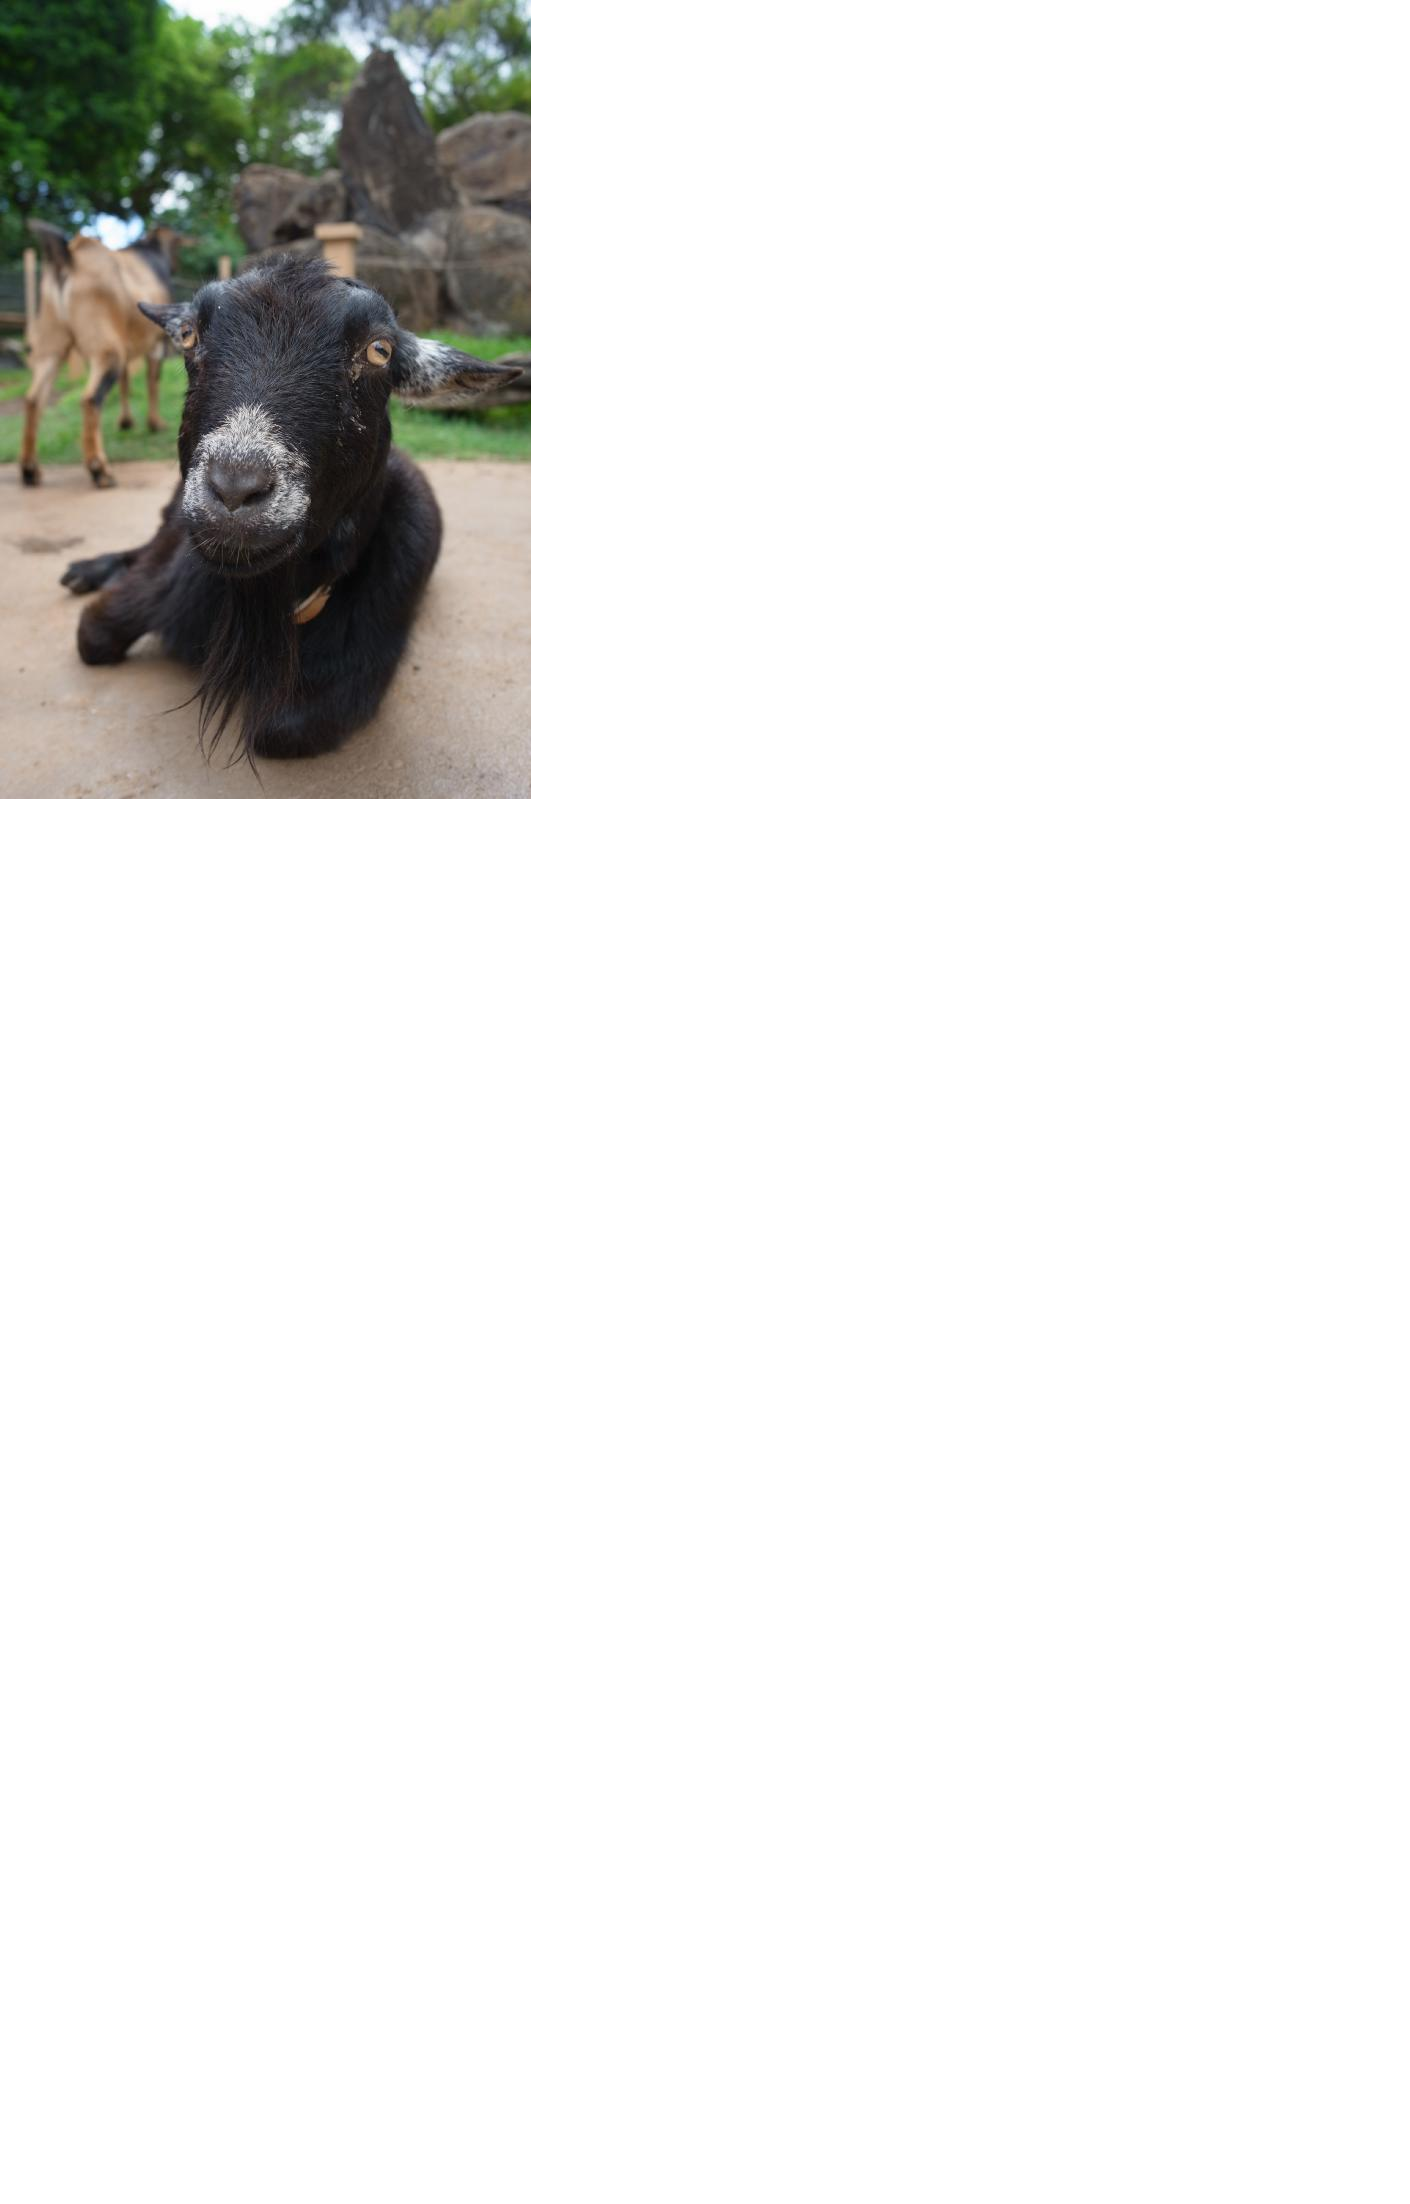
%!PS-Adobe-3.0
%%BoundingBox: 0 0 1410 2204
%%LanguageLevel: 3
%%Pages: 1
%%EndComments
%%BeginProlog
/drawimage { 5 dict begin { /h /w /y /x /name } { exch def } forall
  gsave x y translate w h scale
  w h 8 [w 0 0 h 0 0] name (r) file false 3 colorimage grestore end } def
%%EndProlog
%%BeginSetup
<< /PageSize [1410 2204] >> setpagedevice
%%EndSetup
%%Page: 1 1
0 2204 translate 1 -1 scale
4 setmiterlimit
1 setgray
0 0 1410 2204 rectfill
(images/1.raw) 0 0 531 799 drawimage
showpage
%%EOF
